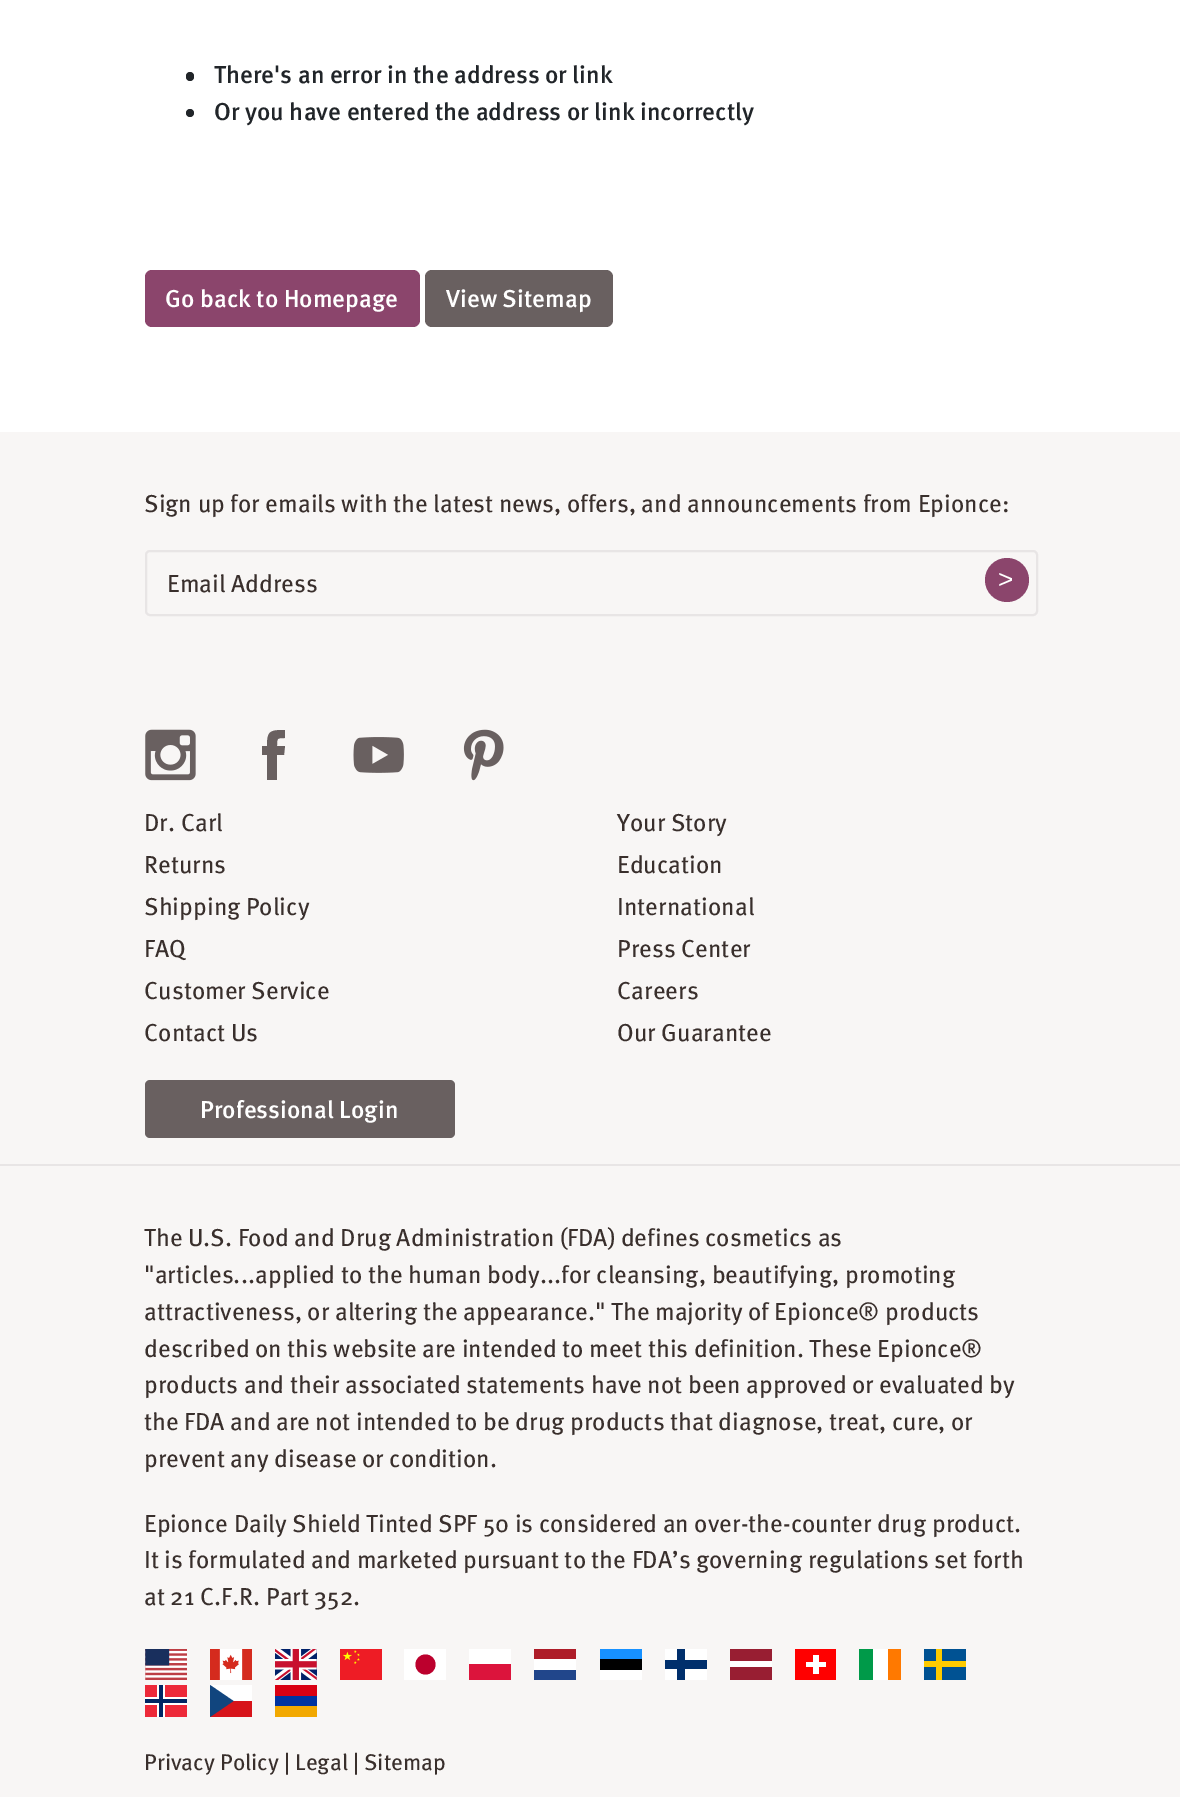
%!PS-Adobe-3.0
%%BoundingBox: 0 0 1180 1797
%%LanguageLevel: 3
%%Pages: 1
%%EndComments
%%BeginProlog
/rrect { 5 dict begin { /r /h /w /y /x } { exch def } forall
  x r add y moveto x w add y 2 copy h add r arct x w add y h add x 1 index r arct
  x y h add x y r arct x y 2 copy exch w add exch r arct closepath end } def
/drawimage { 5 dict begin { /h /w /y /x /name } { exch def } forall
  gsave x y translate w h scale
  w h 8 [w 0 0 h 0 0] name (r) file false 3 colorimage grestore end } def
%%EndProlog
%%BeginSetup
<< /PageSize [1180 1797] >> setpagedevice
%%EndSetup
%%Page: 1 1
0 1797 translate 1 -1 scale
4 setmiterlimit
1 setgray
0 0 1180 1797 rectfill
0.129 0.145 0.161 setrgbcolor
186 72 8 9 4 rrect fill
newpath 190 113 4 0 360 arc closepath fill
0.545 0.271 0.424 setrgbcolor
145 270 275 57 7 rrect fill
0.412 0.376 0.376 setrgbcolor
425 270 188 57 7 rrect fill
0.973 0.965 0.961 setrgbcolor
0 432 1180 732 rectfill
0.91 0.898 0.898 setrgbcolor
0 1164 1180 2 rectfill
2 setlinewidth
146 551 891 64 4 rrect stroke
0.545 0.271 0.424 setrgbcolor
newpath 1007 580 22 0 360 arc closepath fill
(images/1.raw) 145 729 51 52 drawimage
0.412 0.376 0.376 setrgbcolor
newpath 284 755 moveto 277 755 lineto 277 780 lineto 267 780 lineto 267 755 lineto 262 755 lineto 262 746 lineto 267 746 lineto 267 731 270 730 285 730 curveto 285 738 lineto 277 738 277 738 277 746 curveto 285 746 lineto closepath fill
(images/2.raw) 353 737 51 36 drawimage
(images/3.raw) 463 729 41 52 drawimage
145 1080 310 58 5 rrect fill
0.973 0.965 0.961 setrgbcolor
0 1166 1180 631 rectfill
(images/4.raw) 145 1649 42 31 drawimage
(images/5.raw) 210 1649 42 31 drawimage
(images/6.raw) 275 1649 42 31 drawimage
(images/7.raw) 340 1649 42 31 drawimage
1 setgray
404 1649 42 31 rectfill
0.737 0 0.176 setrgbcolor
newpath 425.5 1664.5 10 0 360 arc closepath fill
1 setgray
469 1649 42 15 rectfill
0.863 0.078 0.235 setrgbcolor
469 1664 42 16 rectfill
0.129 0.275 0.545 setrgbcolor
534 1670 42 10 rectfill
1 setgray
534 1659 42 11 rectfill
0.682 0.11 0.157 setrgbcolor
534 1649 42 10 rectfill
0 setgray
600 1659 42 11 rectfill
1 setgray
600 1670 42 10 rectfill
0.09 0.569 1 setrgbcolor
600 1649 42 10 rectfill
1 setgray
665 1649 42 31 rectfill
0 0.184 0.424 setrgbcolor
665 1660 42 9 rectfill
677 1649 8 31 rectfill
1 setgray
730 1661 42 6 rectfill
gsave
730 1649 42 31 rectclip
0.596 0.118 0.196 setrgbcolor
newpath 730 1648 moveto 772 1648 lineto 772 1661 lineto 730 1661 lineto closepath 730 1667 moveto 772 1667 lineto 772 1680 lineto 730 1680 lineto closepath eofill
grestore
1 0 0 setrgbcolor
795 1649 41 31 rectfill
1 setgray
806 1662 20 5 rectfill
813 1655 6 19 rectfill
873 1649 15 31 rectfill
0 0.604 0.286 setrgbcolor
859 1649 14 31 rectfill
1 0.475 0 setrgbcolor
888 1649 13 31 rectfill
0 0.322 0.576 setrgbcolor
924 1649 42 31 rectfill
gsave
924 1649 42 31 rectclip
0.996 0.796 0 setrgbcolor
newpath 936 1648 moveto 936 1661 lineto 924 1661 lineto 924 1667 lineto 936 1667 lineto 936 1680 lineto 942 1680 lineto 942 1667 lineto 966 1667 lineto 966 1661 lineto 942 1661 lineto 942 1648 lineto closepath fill
grestore
0.929 0.161 0.224 setrgbcolor
145 1685 42 32 rectfill
1 setgray
157 1685 8 32 rectfill
145 1697 42 8 rectfill
0 0.149 0.392 setrgbcolor
159 1685 4 32 rectfill
145 1699 42 4 rectfill
1 setgray
210 1685 42 16 rectfill
0.843 0.078 0.102 setrgbcolor
210 1701 42 16 rectfill
0.067 0.271 0.494 setrgbcolor
newpath 233.5 1701 moveto 210 1685 lineto 210 1717 lineto closepath fill
0.851 0 0.071 setrgbcolor
275 1685 42 11 rectfill
0 0.2 0.627 setrgbcolor
275 1696 42 10 rectfill
0.949 0.659 0 setrgbcolor
275 1706 42 11 rectfill
/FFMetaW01-Medium [24.5 0 0 -24.5 0 0] selectfont
0.129 0.145 0.161 setrgbcolor
214 83 moveto (There's an error in the address or link) show
214 120 moveto (Or you have entered the address or link incorrectly) show
1 setgray
165 307 moveto (Go back to Homepage) show
446 307 moveto (View Sitemap) show
/FFMetaW01-Regular [24.5 0 0 -24.5 0 0] selectfont
0.224 0.184 0.173 setrgbcolor
144 512 moveto (Sign up for emails with the latest news, offers, and announcements from Epionce:) show
167 592 moveto (Email Address) show
/LiberationSans-Regular [26 0 0 -26 0 0] selectfont
1 setgray
998 588 moveto 1 0 (>) ashow
/FFMetaW01-Regular [24.5 0 0 -24.5 0 0] selectfont
0.224 0.184 0.173 setrgbcolor
144 831 moveto (Dr. Carl) show
144 873 moveto (Returns) show
144 915 moveto (Shipping Policy) show
144 957 moveto (FAQ) show
144 999 moveto (Customer Service) show
144 1041 moveto (Contact Us) show
617 831 moveto (Your Story) show
617 873 moveto (Education) show
617 915 moveto (International) show
617 957 moveto (Press Center) show
617 999 moveto (Careers) show
617 1041 moveto (Our Guarantee) show
/FFMetaW01-Medium [24.5 0 0 -24.5 0 0] selectfont
1 setgray
200 1118 moveto (Professional Login) show
/FFMetaW01-Regular [24.5 0 0 -24.5 0 0] selectfont
0.224 0.184 0.173 setrgbcolor
144 1246 moveto (The U.S. Food and Drug Administration \(FDA\) defines cosmetics as) show
144 1283 moveto ("articles...applied to the human body...for cleansing, beautifying, promoting) show
144 1320 moveto (attractiveness, or altering the appearance." The majority of Epionce® products) show
144 1357 moveto (described on this website are intended to meet this definition. These Epionce®) show
144 1393 moveto (products and their associated statements have not been approved or evaluated by) show
144 1430 moveto (the FDA and are not intended to be drug products that diagnose, treat, cure, or) show
144 1467 moveto (prevent any disease or condition.) show
144 1532 moveto (Epionce Daily Shield Tinted SPF 50 is considered an over-the-counter drug product.) show
144 1568 moveto (It is formulated and marketed pursuant to the FDA’s governing regulations set forth) show
144 1605 moveto (at 21 C.F.R. Part 352.) show
/FFMetaW01-Regular [22.75 0 0 -22.75 0 0] selectfont
144 1770 moveto (Privacy Policy | Legal | Sitemap) show
showpage
%%EOF
